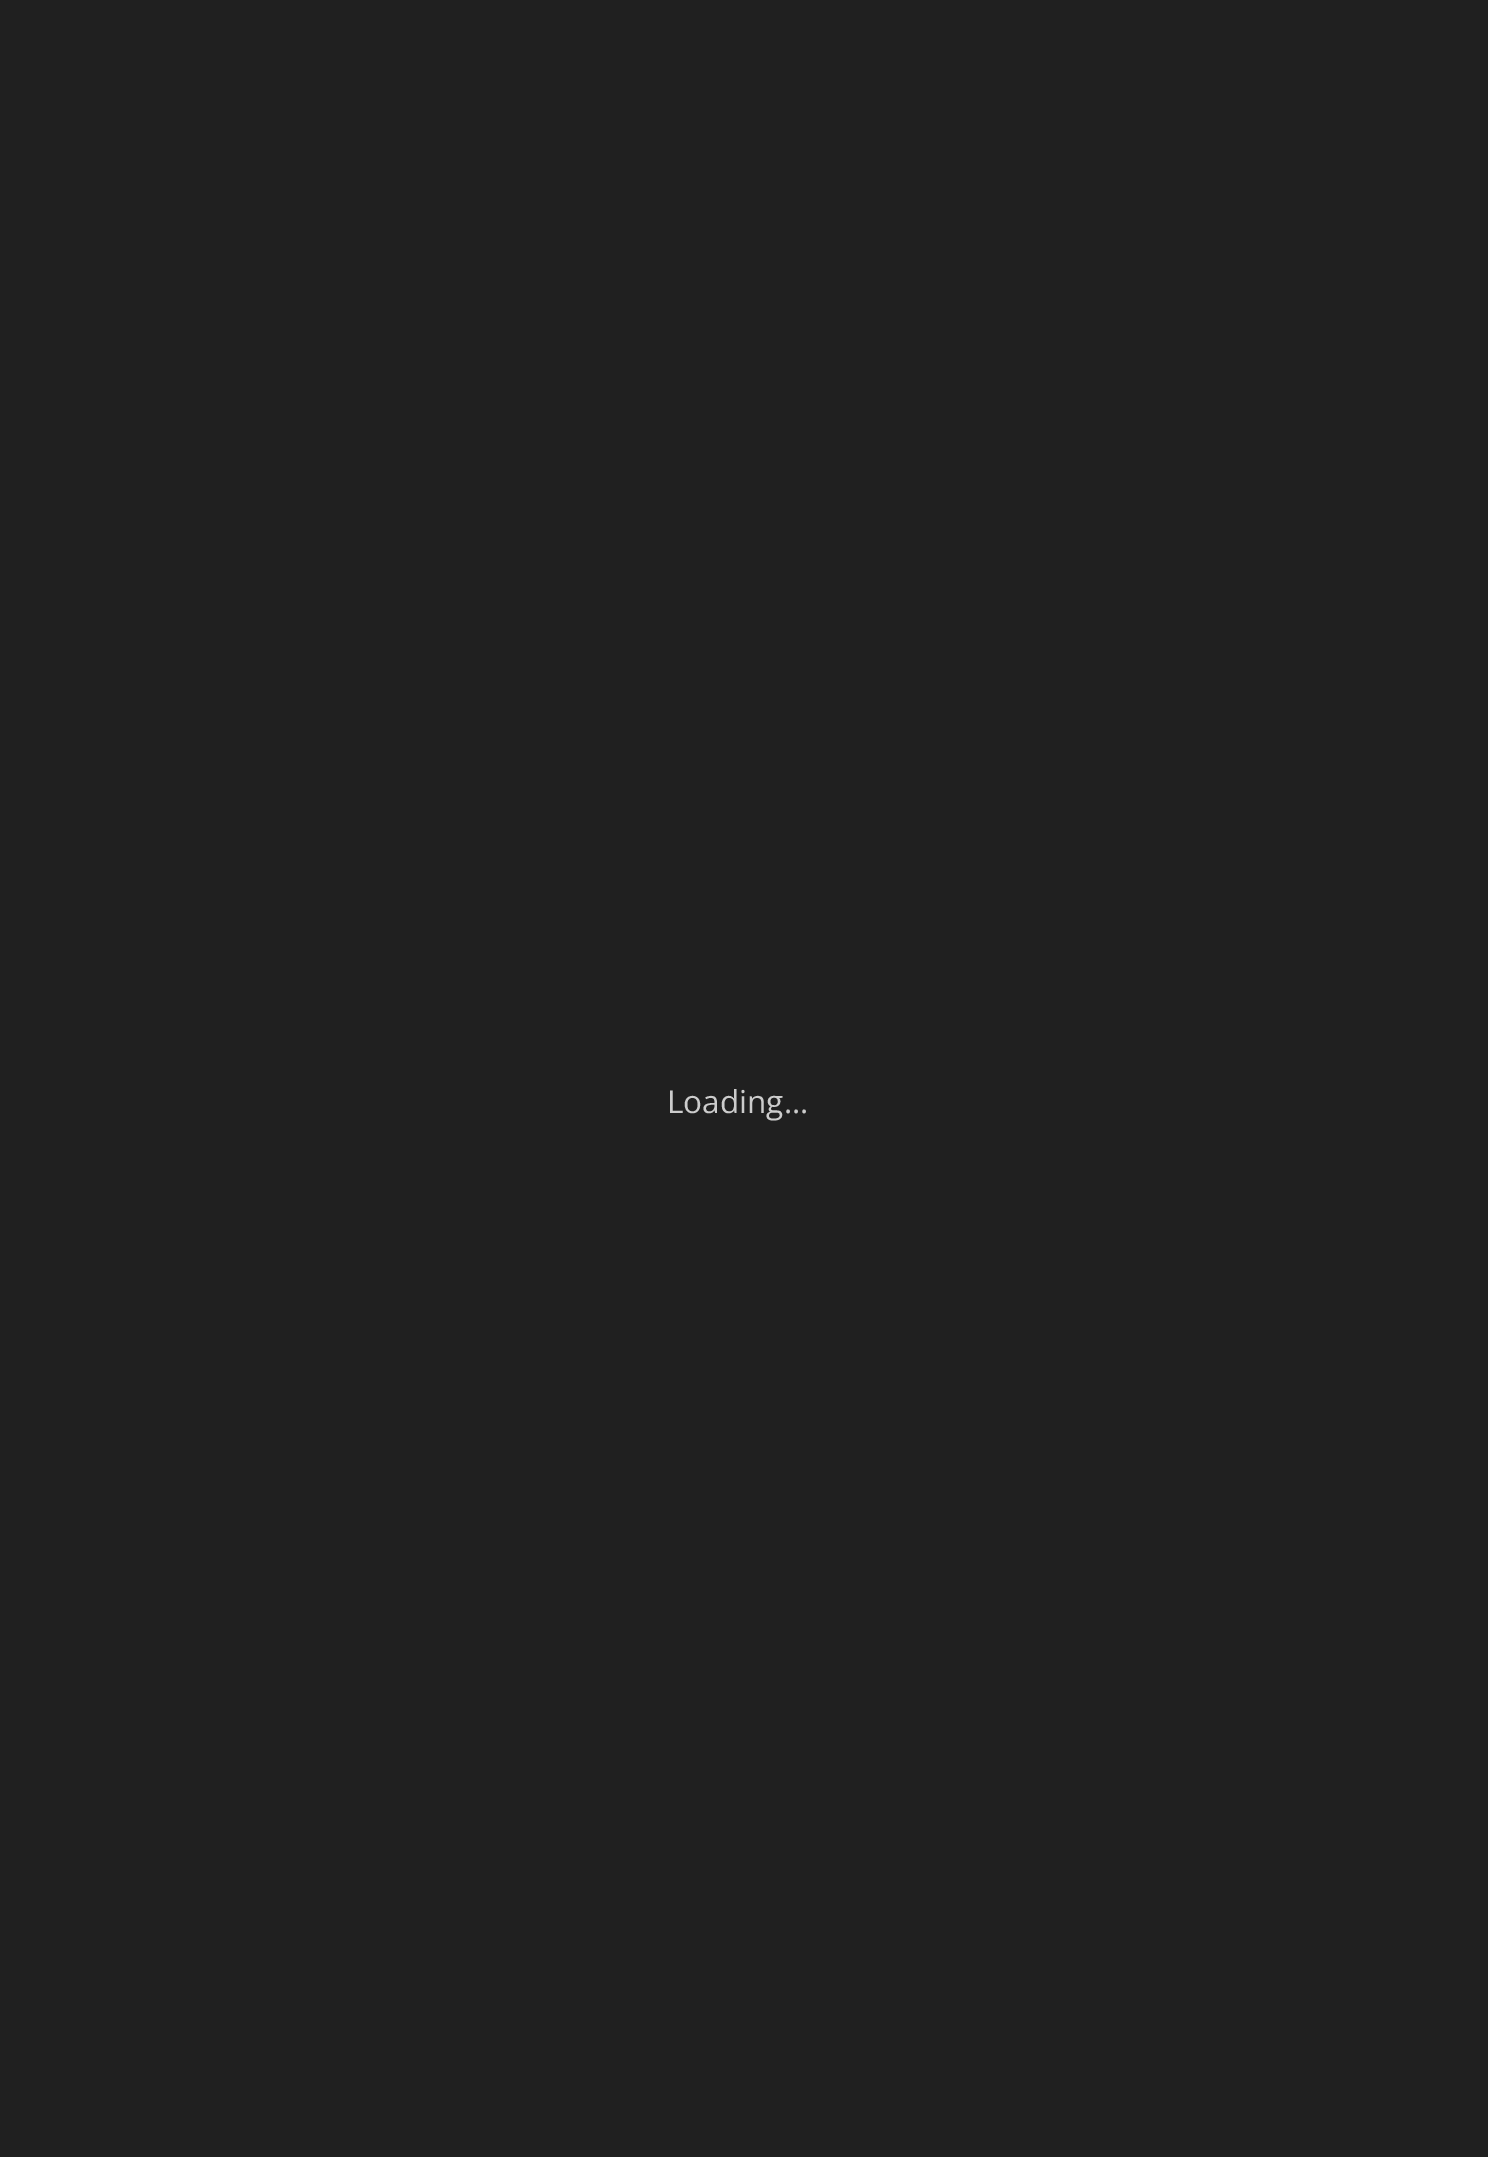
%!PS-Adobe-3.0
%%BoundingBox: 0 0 1488 2157
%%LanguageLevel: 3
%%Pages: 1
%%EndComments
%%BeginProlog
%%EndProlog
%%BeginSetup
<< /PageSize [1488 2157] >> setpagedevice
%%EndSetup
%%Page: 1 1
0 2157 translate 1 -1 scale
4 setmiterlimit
0.125 setgray
0 0 1488 2157 rectfill
/OpenSans-Regular [31.5 0 0 -31.5 0 0] selectfont
0.8 setgray
667 1113 moveto (Loading...) show
showpage
%%EOF
